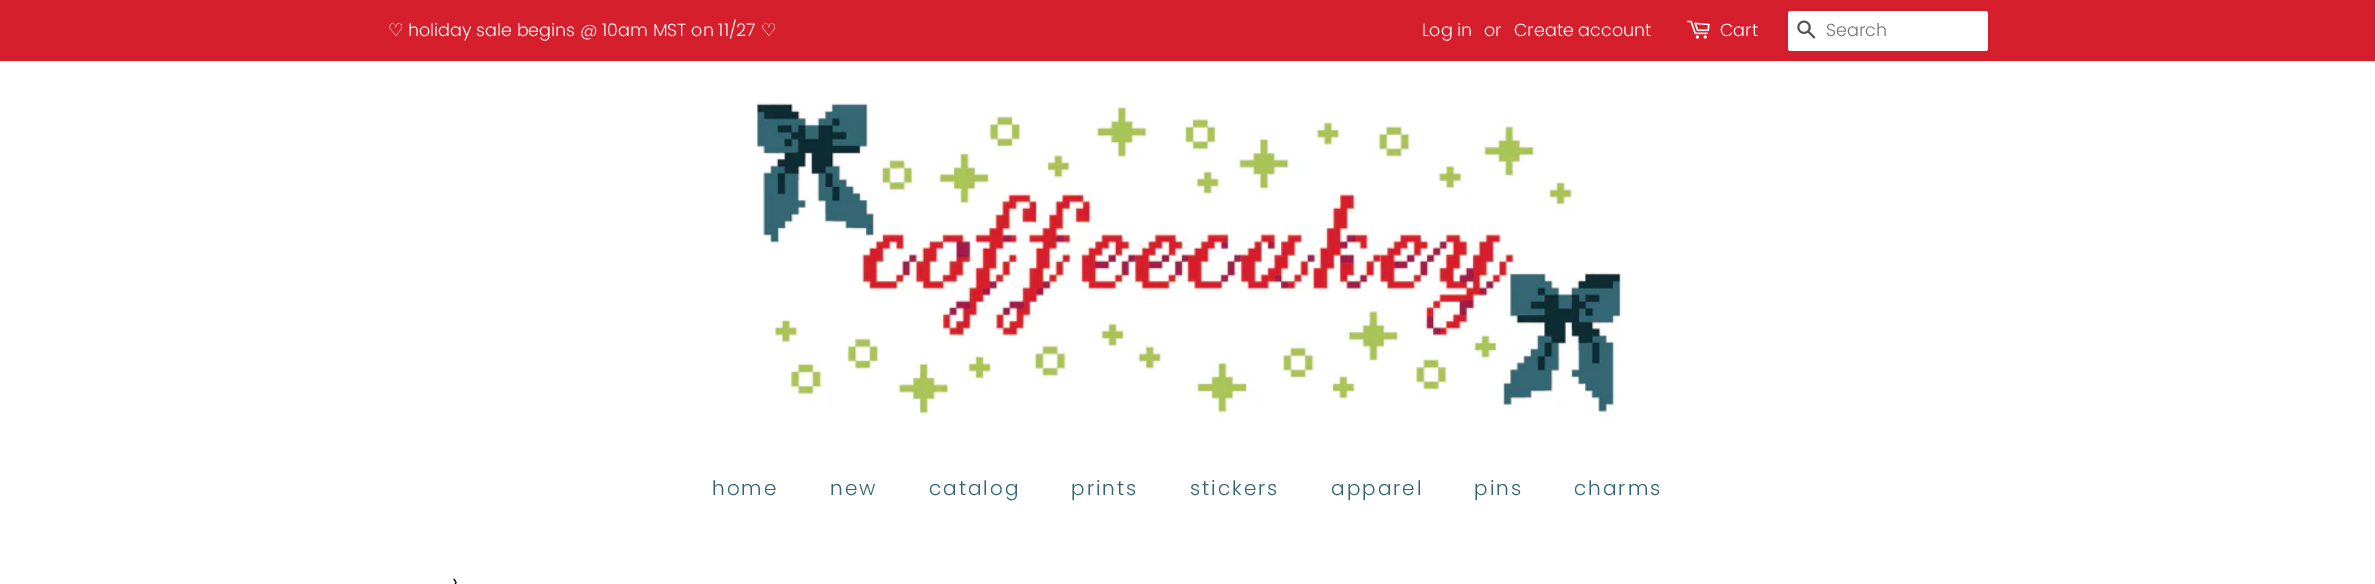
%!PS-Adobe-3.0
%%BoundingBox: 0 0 2375 584
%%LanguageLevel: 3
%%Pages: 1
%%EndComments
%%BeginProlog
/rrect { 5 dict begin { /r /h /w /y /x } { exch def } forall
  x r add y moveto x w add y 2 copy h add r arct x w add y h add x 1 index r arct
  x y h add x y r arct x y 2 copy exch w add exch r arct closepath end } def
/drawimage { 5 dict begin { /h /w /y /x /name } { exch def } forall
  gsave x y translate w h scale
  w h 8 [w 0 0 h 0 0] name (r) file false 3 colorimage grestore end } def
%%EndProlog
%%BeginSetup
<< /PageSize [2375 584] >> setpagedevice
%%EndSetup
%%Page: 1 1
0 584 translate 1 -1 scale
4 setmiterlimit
1 setgray
0 0 2375 584 rectfill
0.839 0.122 0.173 setrgbcolor
0 0 2375 61 rectfill
(images/1.raw) 1686 20 24 19 drawimage
1 setgray
1788 11 200 40 2.5 rrect fill
(images/2.raw) 1797 20 19 19 drawimage
(images/3.raw) 755 102 868 316 drawimage
/DejaVuSans-Regular [17.5 0 0 -17.5 0 0] selectfont
388 36 moveto (♡) show
/Poppins-Light [17.5 0 0 -17.5 0 0] selectfont
408 36 moveto (holiday sale begins @ 10am MST on 11/27) show
/DejaVuSans-Regular [17.5 0 0 -17.5 0 0] selectfont
761 36 moveto (♡) show
/Poppins-Light [17.5 0 0 -17.5 0 0] selectfont
1422 36 moveto (Log in) show
1484 36 moveto (or) show
1514 36 moveto (Create account) show
1720 36 moveto (Cart) show
0.459 setgray
1826 36 moveto (Search) show
/Poppins-Light [20 0 0 -20 0 0] selectfont
0.204 0.404 0.451 setrgbcolor
712 495 moveto 2 0 (home) ashow
830 495 moveto 2 0 (new) ashow
929 495 moveto 2 0 (catalog) ashow
1071 495 moveto 2 0 (prints) ashow
1190 495 moveto 2 0 (stickers) ashow
1331 495 moveto 2 0 (apparel) ashow
1474 495 moveto 2 0 (pins) ashow
1574 495 moveto 2 0 (charms) ashow
/Poppins-Light [22 0 0 -22 0 0] selectfont
0 setgray
452 589 moveto (›) show
showpage
%%EOF
